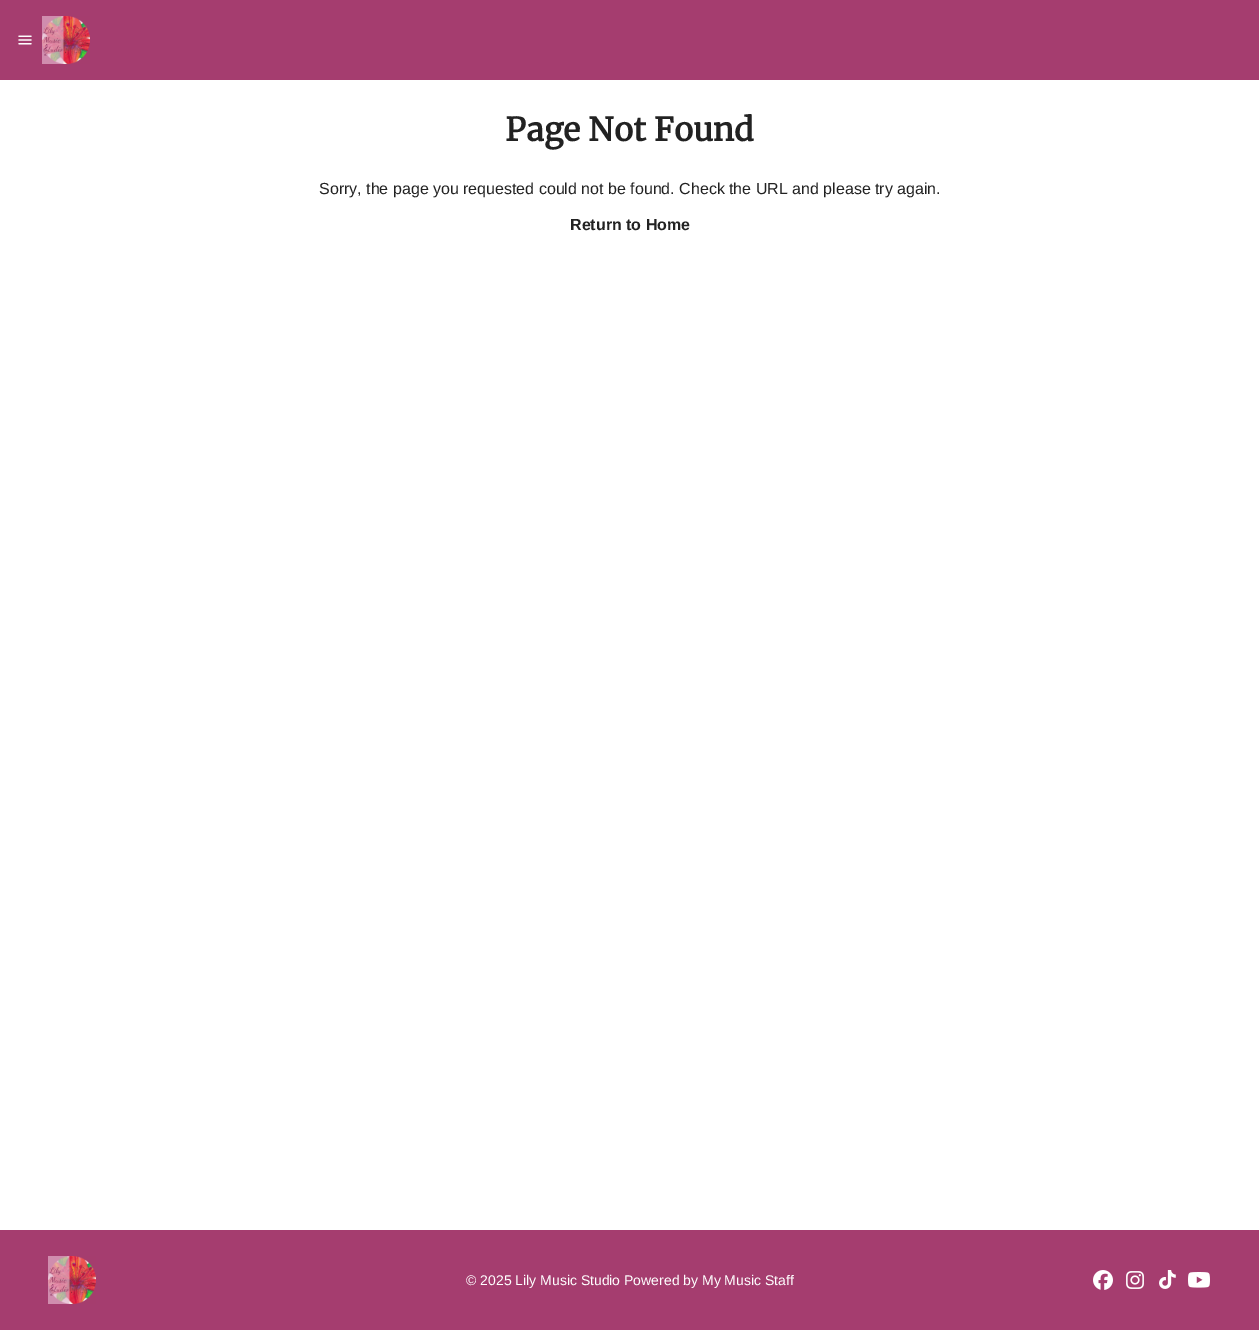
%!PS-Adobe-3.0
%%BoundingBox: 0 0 1259 1330
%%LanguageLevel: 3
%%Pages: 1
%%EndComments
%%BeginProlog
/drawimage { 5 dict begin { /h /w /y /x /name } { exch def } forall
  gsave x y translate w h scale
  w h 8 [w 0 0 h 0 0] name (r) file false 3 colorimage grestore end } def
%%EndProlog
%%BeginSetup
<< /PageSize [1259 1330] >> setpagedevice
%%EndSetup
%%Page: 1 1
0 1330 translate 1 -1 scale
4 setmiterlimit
0.647 0.239 0.435 setrgbcolor
0 0 1259 1330 rectfill
(images/1.raw) 18 35 14 10 drawimage
(images/2.raw) 42 16 48 48 drawimage
1 setgray
0 80 1259 1150 rectfill
(images/2.raw) 48 1256 48 48 drawimage
(images/3.raw) 1093 1270 20 20 drawimage
(images/4.raw) 1126 1271 18 18 drawimage
(images/5.raw) 1159 1270 17 19 drawimage
(images/6.raw) 1188 1272 22 16 drawimage
/Merriweather-Bold [32 0 0 -32 0 0] selectfont
0.133 setgray
505 141 moveto (Page Not Found) show
/LiberationSans-Regular [16 0 0 -16 0 0] selectfont
319 194 moveto (Sorry, the page you requested could not be found. Check the URL and please try again.) show
/LiberationSans-Bold [16 0 0 -16 0 0] selectfont
570 230 moveto (Return to Home) show
/LiberationSans-Regular [14 0 0 -14 0 0] selectfont
1 setgray
466 1285 moveto (© 2025 Lily Music Studio Powered by My Music Staff) show
showpage
%%EOF
